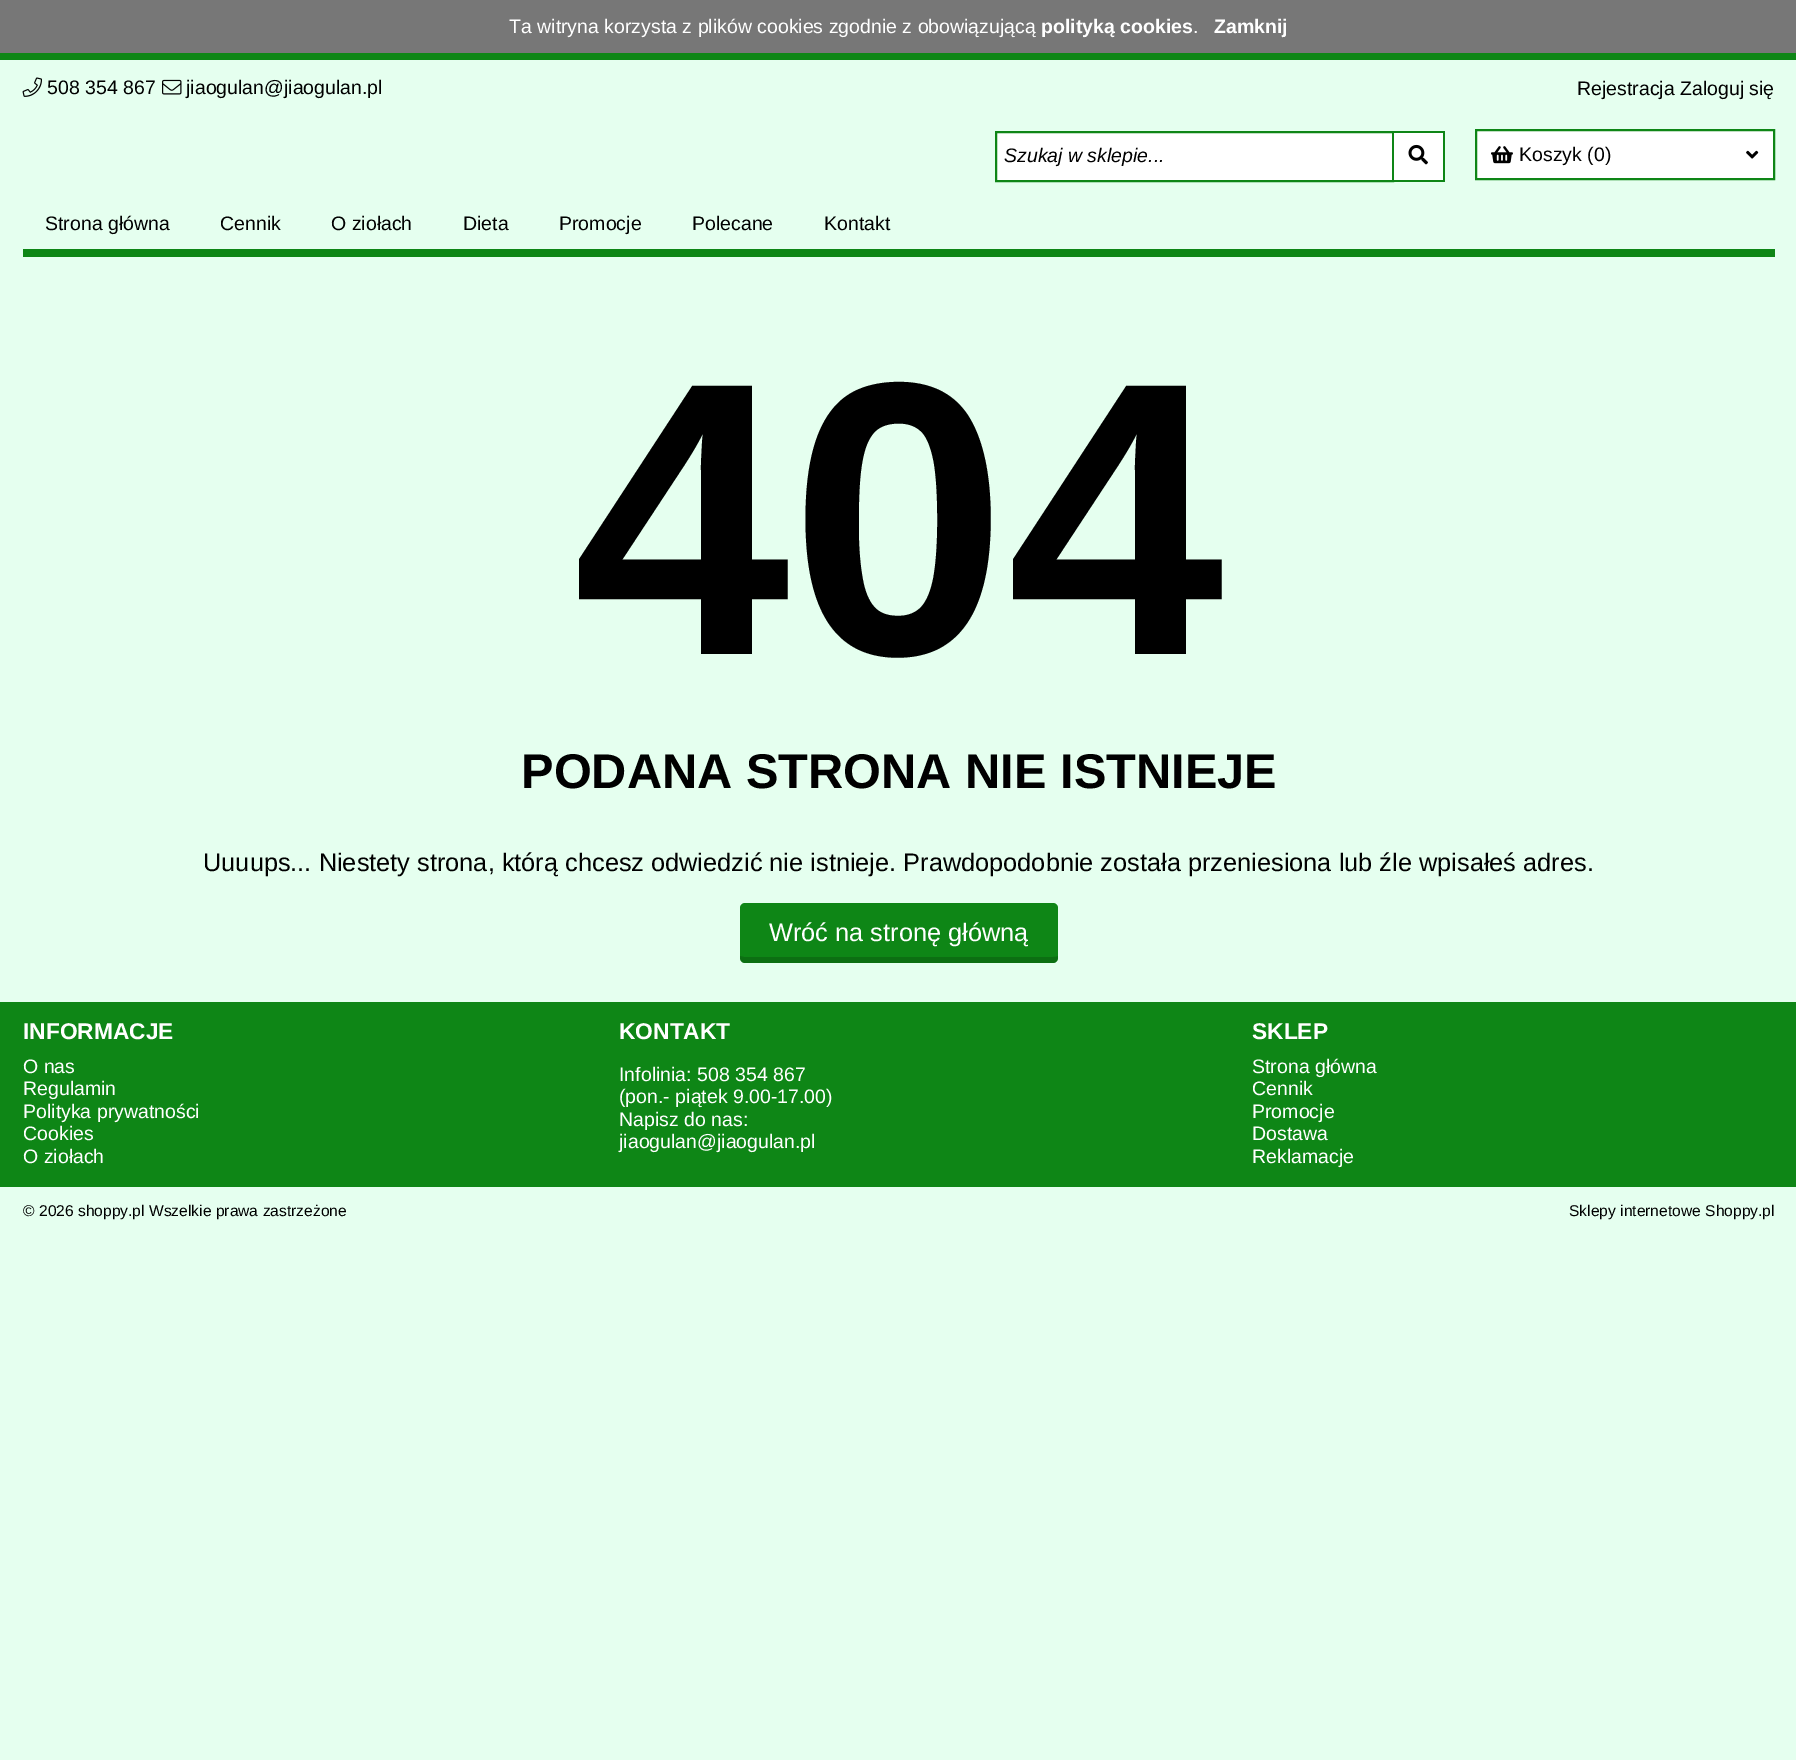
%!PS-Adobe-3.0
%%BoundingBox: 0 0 1796 1760
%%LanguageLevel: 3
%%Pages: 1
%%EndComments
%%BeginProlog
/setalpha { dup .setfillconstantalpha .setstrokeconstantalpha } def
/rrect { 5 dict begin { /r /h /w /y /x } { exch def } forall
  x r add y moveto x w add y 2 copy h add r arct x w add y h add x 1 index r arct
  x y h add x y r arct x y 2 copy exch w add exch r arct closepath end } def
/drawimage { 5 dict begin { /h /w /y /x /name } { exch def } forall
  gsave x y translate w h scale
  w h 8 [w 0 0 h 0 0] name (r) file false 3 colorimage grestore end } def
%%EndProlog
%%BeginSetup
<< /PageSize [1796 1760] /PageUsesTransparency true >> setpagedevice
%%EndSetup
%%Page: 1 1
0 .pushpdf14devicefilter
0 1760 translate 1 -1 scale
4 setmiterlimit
0.898 1 0.937 setrgbcolor
0 0 1796 1760 rectfill
0.467 setgray
0 0 1796 53 rectfill
0.055 0.525 0.086 setrgbcolor
0 53 1796 7 rectfill
(images/1.raw) 22 77 20 20 drawimage
(images/2.raw) 162 79 20 16 drawimage
1 setgray
newpath 996 132 moveto 1393 132 lineto 1393 181 lineto 996 181 lineto closepath gsave fill grestore
0.055 0.525 0.086 setrgbcolor
2 setlinewidth
stroke
1 setgray
1394 133 49 47 rectfill
0.055 0.525 0.086 setrgbcolor
1394 131 51 2 rectfill
1443 131 2 51 rectfill
1394 180 51 2 rectfill
(images/3.raw) 1408 144 20 21 drawimage
1 setgray
newpath 1476 130 moveto 1774 130 lineto 1774 179 lineto 1476 179 lineto closepath gsave fill grestore
0.055 0.525 0.086 setrgbcolor
stroke
(images/4.raw) 1491 146 22 18 drawimage
(images/5.raw) 1746 150 13 9 drawimage
23 249 1752 8 rectfill
740 903 318 60 5 rrect fill
0.17 setalpha
0 setgray
newpath 740 956 moveto 740 960 741 963 745 963 curveto 1053 963 lineto 1057 963 1058 959 1058 956 curveto 1056 957 1055 957 1053 957 curveto 744 957 lineto closepath fill
1 setalpha
0.055 0.525 0.086 setrgbcolor
0 1002 1796 185 rectfill
/LiberationSans-Regular [19.5 0 0 -19.5 0 0] selectfont
1 setgray
509 33 moveto (Ta witryna korzysta z plików cookies zgodnie z obowiązującą) show
/LiberationSans-Bold [19.5 0 0 -19.5 0 0] selectfont
1041 33 moveto (polityką cookies) show
/LiberationSans-Regular [19.5 0 0 -19.5 0 0] selectfont
1193 33 moveto (.) show
/LiberationSans-Bold [19.5 0 0 -19.5 0 0] selectfont
1214 33 moveto (Zamknij) show
/LiberationSans-Regular [19.5 0 0 -19.5 0 0] selectfont
0 setgray
47 94 moveto (508 354 867) show
186 94 moveto (jiaogulan@jiaogulan.pl) show
1577 95 moveto (Rejestracja Zaloguj się) show
/LiberationSans-Italic [19.5 0 0 -19.5 0 0] selectfont
1004 162 moveto (Szukaj w sklepie...) show
/LiberationSans-Regular [19.5 0 0 -19.5 0 0] selectfont
1519 161 moveto (Koszyk \(0\)) show
45 230 moveto (Strona główna) show
220 230 moveto (Cennik) show
331 230 moveto (O ziołach) show
463 230 moveto (Dieta) show
559 230 moveto (Promocje) show
692 230 moveto (Polecane) show
824 230 moveto (Kontakt) show
/LiberationSans-Bold [390 0 0 -390 0 0] selectfont
573 654 moveto (404) show
/LiberationSans-Bold [48.75 0 0 -48.75 0 0] selectfont
521 788 moveto (PODANA STRONA NIE ISTNIEJE) show
/LiberationSans-Regular [25.35 0 0 -25.35 0 0] selectfont
203 871 moveto (Uuuups... Niestety strona, którą chcesz odwiedzić nie istnieje. Prawdopodobnie została przeniesiona lub źle wpisałeś adres.) show
1 setgray
769 941 moveto (Wróć na stronę główną) show
/LiberationSans-Bold [22.75 0 0 -22.75 0 0] selectfont
23 1039 moveto (INFORMACJE) show
/LiberationSans-Regular [19.5 0 0 -19.5 0 0] selectfont
23 1073 moveto (O nas) show
23 1095 moveto (Regulamin) show
23 1118 moveto (Polityka prywatności) show
23 1140 moveto (Cookies) show
23 1163 moveto (O ziołach) show
/LiberationSans-Bold [22.75 0 0 -22.75 0 0] selectfont
619 1039 moveto (KONTAKT) show
/LiberationSans-Regular [19.5 0 0 -19.5 0 0] selectfont
619 1081 moveto (Infolinia: 508 354 867) show
619 1103 moveto (\(pon.- piątek 9.00-17.00\)) show
619 1126 moveto (Napisz do nas:) show
619 1148 moveto (jiaogulan@jiaogulan.pl) show
/LiberationSans-Bold [22.75 0 0 -22.75 0 0] selectfont
1252 1039 moveto (SKLEP) show
/LiberationSans-Regular [19.5 0 0 -19.5 0 0] selectfont
1252 1073 moveto (Strona główna) show
1252 1095 moveto (Cennik) show
1252 1118 moveto (Promocje) show
1252 1140 moveto (Dostawa) show
1252 1163 moveto (Reklamacje) show
/LiberationSans-Regular [15.6 0 0 -15.6 0 0] selectfont
0 setgray
23 1216 moveto (© 2026 shoppy.pl Wszelkie prawa zastrzeżone) show
1569 1216 moveto (Sklepy internetowe Shoppy.pl) show
.poppdf14devicefilter showpage
%%EOF
